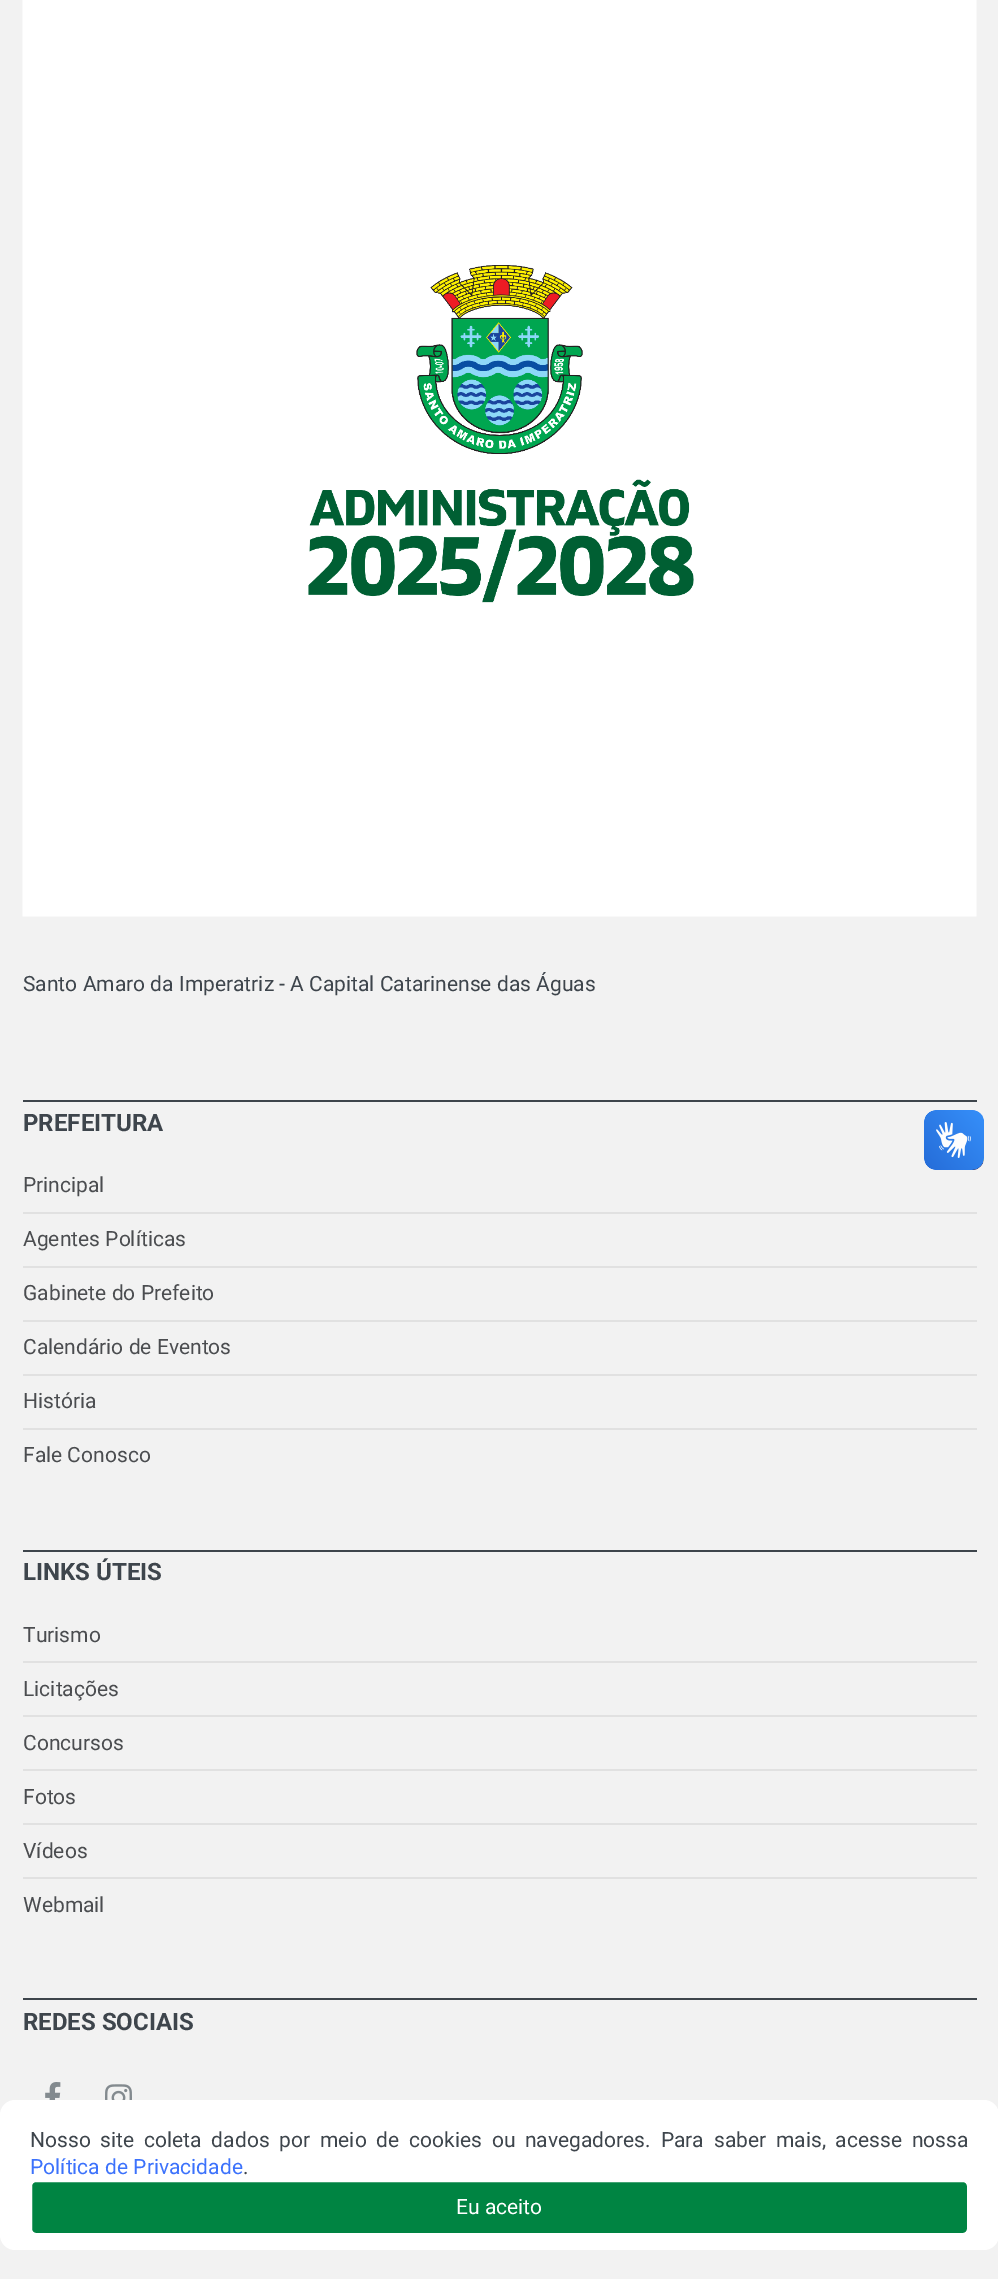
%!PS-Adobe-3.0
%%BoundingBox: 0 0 998 2279
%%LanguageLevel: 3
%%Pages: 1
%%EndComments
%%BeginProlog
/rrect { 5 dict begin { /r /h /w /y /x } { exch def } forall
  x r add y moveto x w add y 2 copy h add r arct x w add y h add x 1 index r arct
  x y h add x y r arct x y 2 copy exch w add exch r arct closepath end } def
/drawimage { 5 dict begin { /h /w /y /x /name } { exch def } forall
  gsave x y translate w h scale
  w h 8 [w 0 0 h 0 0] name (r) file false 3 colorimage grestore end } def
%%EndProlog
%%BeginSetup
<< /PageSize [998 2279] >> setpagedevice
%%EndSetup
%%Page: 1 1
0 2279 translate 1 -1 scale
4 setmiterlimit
0.949 setgray
0 0 998 2279 rectfill
(images/1.raw) 22 0 955 917 drawimage
0.243 0.271 0.298 setrgbcolor
23 1100 954 2 rectfill
0.882 setgray
23 1212 954 2 rectfill
23 1266 954 2 rectfill
23 1320 954 2 rectfill
23 1374 954 2 rectfill
23 1428 954 2 rectfill
0.243 0.271 0.298 setrgbcolor
23 1550 954 2 rectfill
0.882 setgray
23 1661 954 2 rectfill
23 1715 954 2 rectfill
23 1769 954 2 rectfill
23 1823 954 2 rectfill
23 1877 954 2 rectfill
0.243 0.271 0.298 setrgbcolor
23 1998 954 2 rectfill
(images/2.raw) 45 2082 16 18 drawimage
(images/3.raw) 105 2084 27 16 drawimage
(images/4.raw) 924 1110 60 60 drawimage
(images/5.raw) 924 1110 60 60 drawimage
1 setgray
0 2100 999 150 15 rrect fill
0 0.518 0.259 setrgbcolor
31 2181 937 53 5 rrect gsave fill grestore
1 setgray
2 setlinewidth
stroke
/Roboto-Regular [21 0 0 -21 0 0] selectfont
0.243 0.271 0.298 setrgbcolor
23 991 moveto (Santo Amaro da Imperatriz - A Capital Catarinense das Águas) show
/Roboto-Bold [24 0 0 -24 0 0] selectfont
23 1131 moveto (PREFEITURA) show
/Roboto-Regular [21 0 0 -21 0 0] selectfont
0.294 0.302 0.314 setrgbcolor
23 1192 moveto (Principal) show
23 1246 moveto (Agentes Políticas) show
23 1300 moveto (Gabinete do Prefeito) show
23 1354 moveto (Calendário de Eventos) show
23 1408 moveto (História) show
23 1462 moveto (Fale Conosco) show
/Roboto-Bold [24 0 0 -24 0 0] selectfont
0.243 0.271 0.298 setrgbcolor
23 1580 moveto (LINKS ÚTEIS) show
/Roboto-Regular [21 0 0 -21 0 0] selectfont
0.294 0.302 0.314 setrgbcolor
23 1642 moveto (Turismo) show
23 1696 moveto (Licitações) show
23 1750 moveto (Concursos) show
23 1804 moveto (Fotos) show
23 1858 moveto (Vídeos) show
23 1912 moveto (Webmail) show
/Roboto-Bold [24 0 0 -24 0 0] selectfont
0.243 0.271 0.298 setrgbcolor
23 2030 moveto (REDES SOCIAIS) show
/Roboto-Regular [21 0 0 -21 0 0] selectfont
30 2147 moveto 4.6 0 32 (Nosso site coleta dados por meio de cookies ou navegadores. Para saber mais, acesse nossa) widthshow
0.235 0.447 0.988 setrgbcolor
30 2174 moveto (Política de Privacidade) show
0.243 0.271 0.298 setrgbcolor
243 2174 moveto (.) show
1 setgray
456 2214 moveto (Eu aceito) show
showpage
%%EOF
